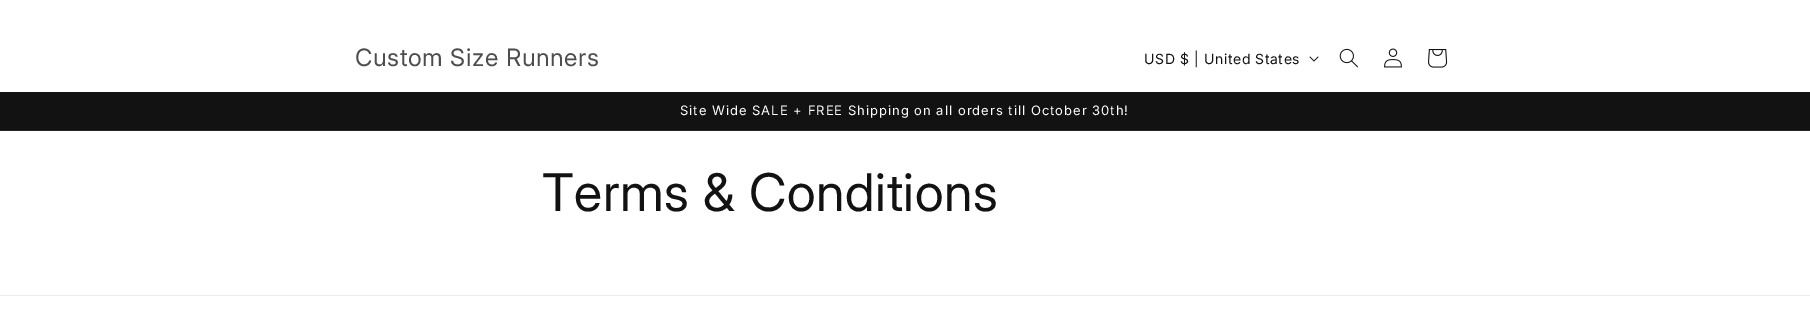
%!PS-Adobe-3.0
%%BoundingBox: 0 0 1810 333
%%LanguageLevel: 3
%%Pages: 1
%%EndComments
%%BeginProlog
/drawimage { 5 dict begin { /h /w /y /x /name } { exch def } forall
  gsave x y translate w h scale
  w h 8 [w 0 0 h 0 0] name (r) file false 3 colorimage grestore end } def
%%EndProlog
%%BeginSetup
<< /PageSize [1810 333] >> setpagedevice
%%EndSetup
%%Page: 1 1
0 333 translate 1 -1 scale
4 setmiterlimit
1 setgray
0 0 1810 333 rectfill
(images/1.raw) 1309 56 10 6 drawimage
(images/2.raw) 1339 48 19 20 drawimage
(images/3.raw) 1384 48 18 20 drawimage
(images/4.raw) 1428 49 20 19 drawimage
0.071 setgray
0 92 1810 38 rectfill
0.145 setgray
0 130 1810 1 rectfill
0.925 setgray
0 295 1810 1 rectfill
/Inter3-Regular [24 0 0 -24 0 0] selectfont
0.302 setgray
355 66 moveto 0.6 0 (Custom Size Runners) ashow
/Inter-Regular [14 0 0 -14 0 0] selectfont
0.071 setgray
1144 64 moveto 0.6 0 (USD $ | United States) ashow
/Inter-Regular [13 0 0 -13 0 0] selectfont
1 setgray
680 115 moveto 1 0 (Site Wide SALE + FREE Shipping on all orders till October 30th!) ashow
/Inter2-Regular [52 0 0 -52 0 0] selectfont
0.071 setgray
542 211 moveto 0.6 0 (Terms & Conditions) ashow
showpage
%%EOF
